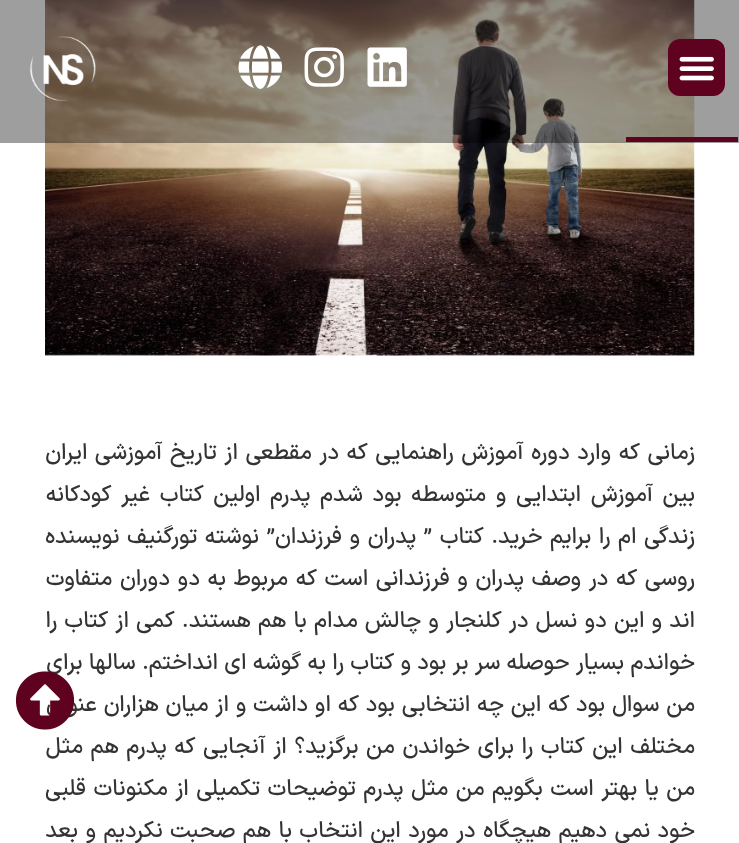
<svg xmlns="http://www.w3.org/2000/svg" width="739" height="843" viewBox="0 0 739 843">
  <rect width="100%" height="100%" fill="#fff"/>
  <image x="45" y="0" width="650" height="356" href="img/6.png"/>
  <path d="M0 0h739v143H0z" fill="#00000061"/>
  <rect x="668" y="39" width="57" height="57" rx="12" fill="#5f021f"/>
  <image x="679" y="56" width="35" height="25" href="img/1.png"/>
  <image x="367" y="47" width="40" height="40" href="img/2.png"/>
  <image x="304" y="47" width="40" height="40" href="img/3.png"/>
  <image x="238" y="45" width="45" height="44" href="img/4.png"/>
  <image x="30" y="36" width="66" height="65" href="img/5.png"/>
  <path d="M626 137h112v5H626z" fill="#5f021f"/>
  <g font-family="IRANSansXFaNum" font-size="22.5" font-weight="500" direction="rtl" fill="#333">
    <text x="695" y="459" word-spacing="1.5">زمانی که وارد دوره آموزش راهنمایی که در مقطعی از تاریخ آموزشی ایران</text>
    <text x="695" y="501" word-spacing="3.6">بین آموزش ابتدایی و متوسطه بود شدم پدرم اولین کتاب غیر کودکانه</text>
    <text x="695" y="543" word-spacing="1.5">زندگی ام را برایم خرید. کتاب ” پدران و فرزندان” نوشته تورگنیف نویسنده</text>
    <text x="695" y="585" word-spacing="1.6">روسی که در وصف پدران و فرزندانی است که مربوط به دو دوران متفاوت</text>
    <text x="695" y="627" word-spacing="1.1">اند و این دو نسل در کلنجار و چالش مدام با هم هستند. کمی از کتاب را</text>
    <text x="695" y="669" word-spacing="0.25">خواندم بسیار حوصله سر بر بود و کتاب را به گوشه ای انداختم. سالها برای</text>
    <text x="695" y="711" word-spacing="0.8">من سوال بود که این چه انتخابی بود که او داشت و از میان هزاران عنوان</text>
    <text x="695" y="753" word-spacing="1.5">مختلف این کتاب را برای خواندن من برگزید؟ از آنجایی که پدرم هم مثل</text>
    <text x="695" y="795" word-spacing="1.4">من یا بهتر است بگویم من مثل پدرم توضیحات تکمیلی از مکنونات قلبی</text>
    <text x="695" y="837" word-spacing="1.4">خود نمی دهیم هیچگاه در مورد این انتخاب با هم صحبت نکردیم و بعد</text>
  </g>
  <image x="15" y="671" width="60" height="59" href="img/7.png"/>
</svg>
